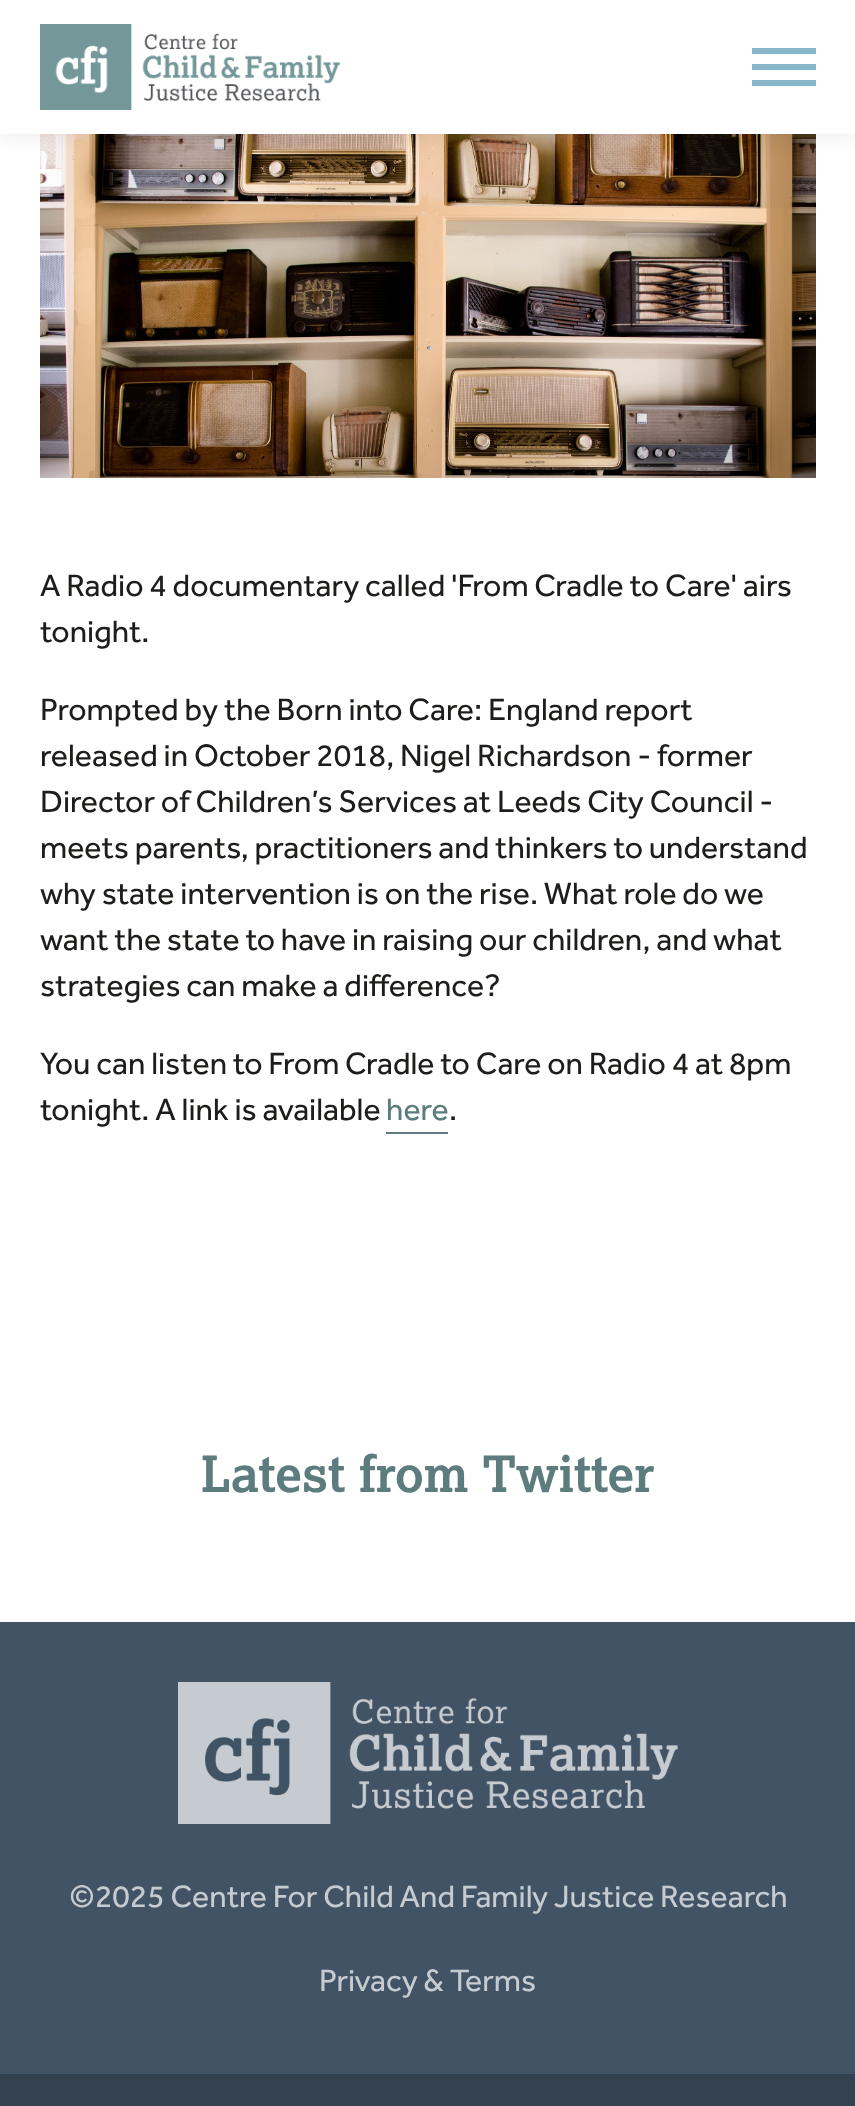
<svg xmlns="http://www.w3.org/2000/svg" width="855" height="2106" viewBox="0 0 855 2106">
  <rect width="100%" height="100%" fill="#fff"/>
  <image x="40" y="134" width="776" height="344" href="img/2.png"/>
  <path d="M0 0h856v134H0z" fill="#0000001a" filter="blur(10px)"/>
  <path d="M0 0h855v134H0z" fill="#fff"/>
  <image x="40" y="24" width="300" height="86" href="img/1.png"/>
  <path d="M752 64h64v6H752z" fill="#88b7cc"/>
  <path d="M752 48h64v6H752z" fill="#88b7cc"/>
  <path d="M752 80h64v6H752z" fill="#88b7cc"/>
  <path d="M386 1132h62v2H386z" fill="#5d7c7e"/>
  <path d="M0 1622h855v452H0z" fill="#415364"/>
  <image x="178" y="1682" width="500" height="142" href="img/3.png"/>
  <path d="M0 2074h855v32H0z" fill="#344250"/>
  <g font-family="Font" font-size="32" fill="#1d1d1b">
    <text x="40" y="596">A Radio 4 documentary called 'From Cradle to Care' airs</text>
    <text x="40" y="642">tonight.</text>
    <text x="40" y="720">Prompted by the Born into Care: England report</text>
    <text x="40" y="766">released in October 2018, Nigel Richardson - former</text>
    <text x="40" y="812">Director of Children’s Services at Leeds City Council -</text>
    <text x="40" y="858">meets parents, practitioners and thinkers to understand</text>
    <text x="40" y="904">why state intervention is on the rise. What role do we</text>
    <text x="40" y="950">want the state to have in raising our children, and what</text>
    <text x="40" y="996">strategies can make a difference?</text>
    <text x="40" y="1074">You can listen to From Cradle to Care on Radio 4 at 8pm</text>
    <text x="40" y="1120">tonight. A link is available</text>
  </g>
  <text x="386" y="1120" font-family="Font" font-size="32" fill="#5d7c7e">here</text>
  <text x="449" y="1120" font-family="Font" font-size="32" fill="#1d1d1b">.</text>
  <text x="201" y="1492" font-family="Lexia" font-size="50" font-weight="bold" fill="#5d7c7e">Latest from Twitter</text>
  <g font-family="Font" font-size="32" fill="#c5cbd0">
    <text x="69" y="1907">©2025 Centre For Child And Family Justice Research</text>
    <text x="319" y="1991">Privacy &amp; Terms</text>
  </g>
</svg>
